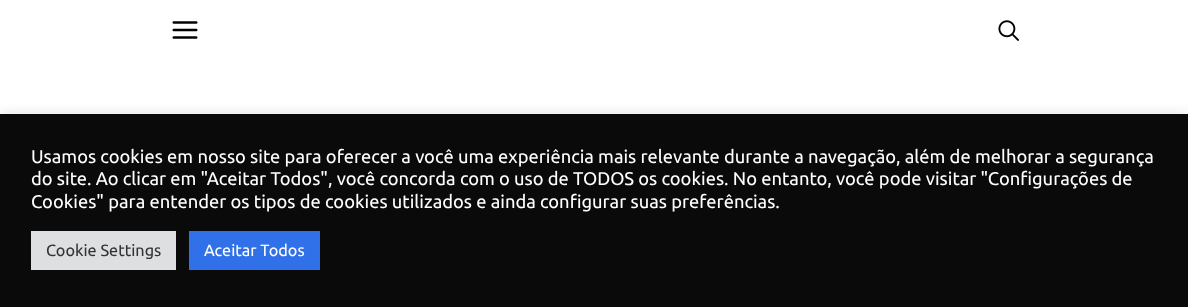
<svg xmlns="http://www.w3.org/2000/svg" width="1188" height="307" viewBox="0 0 1188 307">
  <rect width="100%" height="100%" fill="#fff"/>
  <image x="172" y="21" width="26" height="18" href="img/1.png"/>
  <image x="998" y="20" width="21" height="21" href="img/2.png"/>
  <path d="M0 113h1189v193H0z" fill="#acabab4d" filter="blur(6px)"/>
  <path d="M0 114h1188v193H0z" fill="#0a0a0a"/>
  <path d="M31 231h145v39H31z" fill="#dedfe0"/>
  <path d="M189 231h131v39H189z" fill="#3070e8"/>
  <g font-family="Ubuntu" font-size="18.33" fill="#fff">
    <text x="31" y="163">Usamos cookies em nosso site para oferecer a você uma experiência mais relevante durante a navegação, além de melhorar a segurança</text>
    <text x="31" y="185">do site. Ao clicar em "Aceitar Todos", você concorda com o uso de TODOS os cookies. No entanto, você pode visitar "Configurações de</text>
    <text x="31" y="208">Cookies" para entender os tipos de cookies utilizados e ainda configurar suas preferências.</text>
  </g>
  <text x="46" y="256" font-family="Ubuntu" font-size="16.25" fill="#333">Cookie Settings</text>
  <text x="204" y="256" font-family="Ubuntu" font-size="16.25" fill="#fff">Aceitar Todos</text>
</svg>
